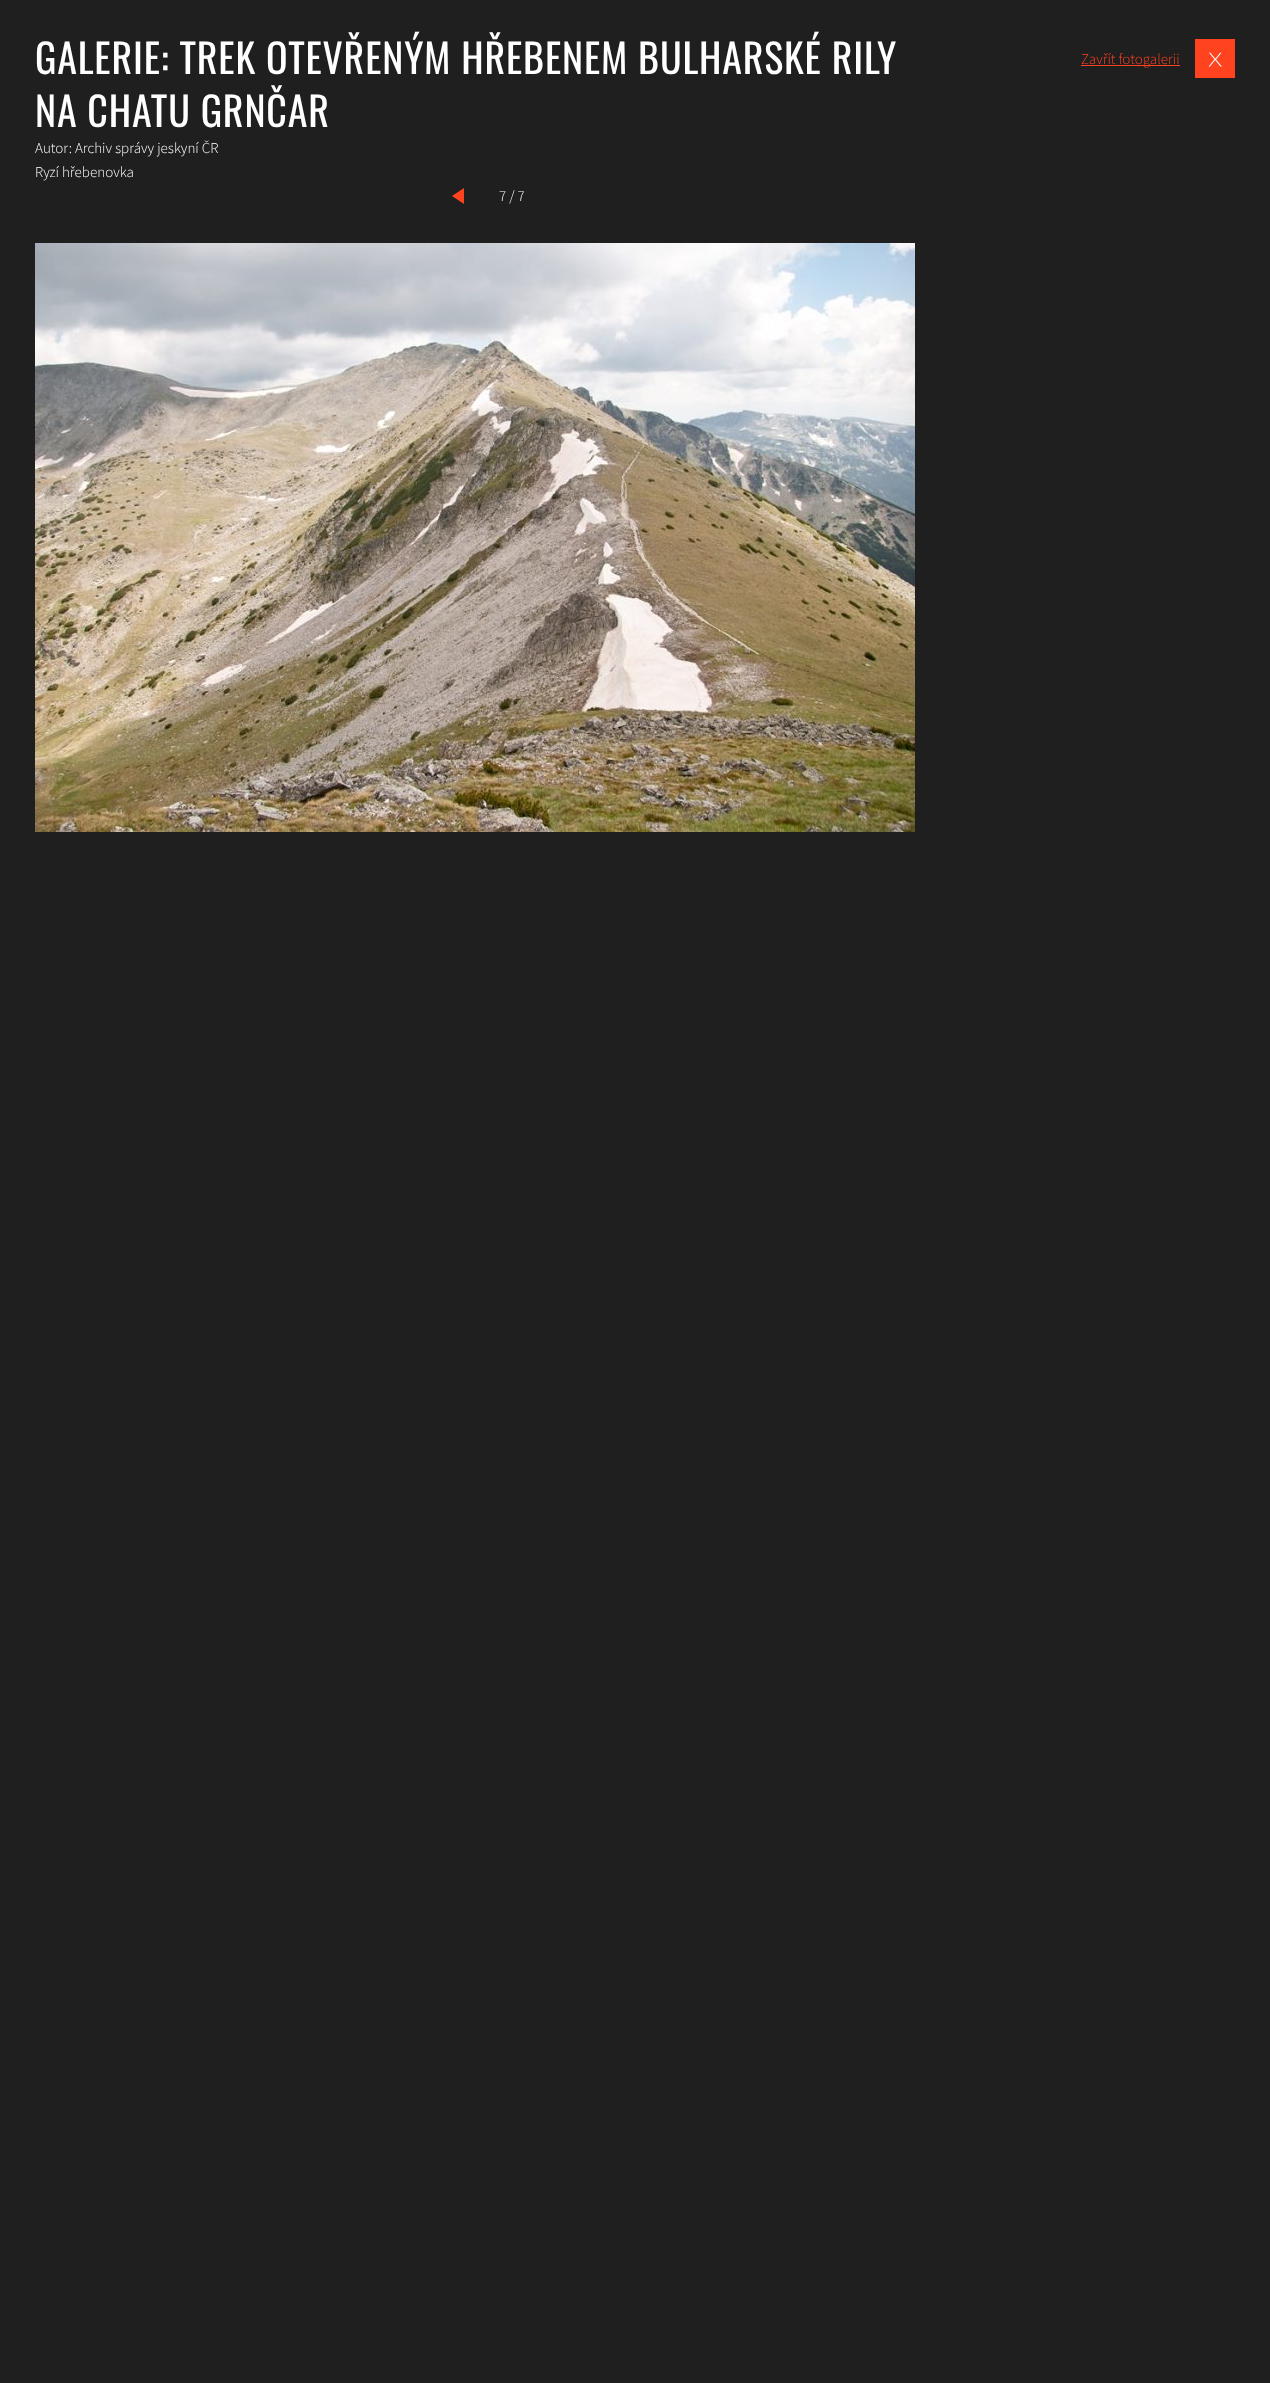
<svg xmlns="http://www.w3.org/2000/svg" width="1270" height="2383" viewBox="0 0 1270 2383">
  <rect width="100%" height="100%" fill="#1f1f1f"/>
  <path d="M464 188V204L452 196Z" fill="#ff431f"/>
  <path d="M1081 65h99v1H1081z" fill="#ff431f"/>
  <path d="M1195 39h40v39H1195z" fill="#ff431f"/>
  <image x="1208" y="52" width="14" height="15" href="img/1.png"/>
  <image x="35" y="243" width="880" height="589" href="img/2.png"/>
  <g font-family="Oswald" font-size="40" letter-spacing="0.8" fill="#fff">
    <text x="35" y="74">GALERIE: TREK OTEVŘENÝM HŘEBENEM BULHARSKÉ RILY</text>
    <text x="35" y="127">NA CHATU GRNČAR</text>
  </g>
  <g font-family="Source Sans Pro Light" font-size="15" font-weight="300" fill="#fff">
    <text x="35" y="153">Autor: Archiv správy jeskyní ČR</text>
    <text x="35" y="177">Ryzí hřebenovka</text>
    <text x="499" y="201">7 / 7</text>
  </g>
  <text x="1081" y="64" font-family="Source Sans Pro Light" font-size="15" font-weight="300" fill="#ff431f">Zavřít fotogalerii</text>
</svg>
